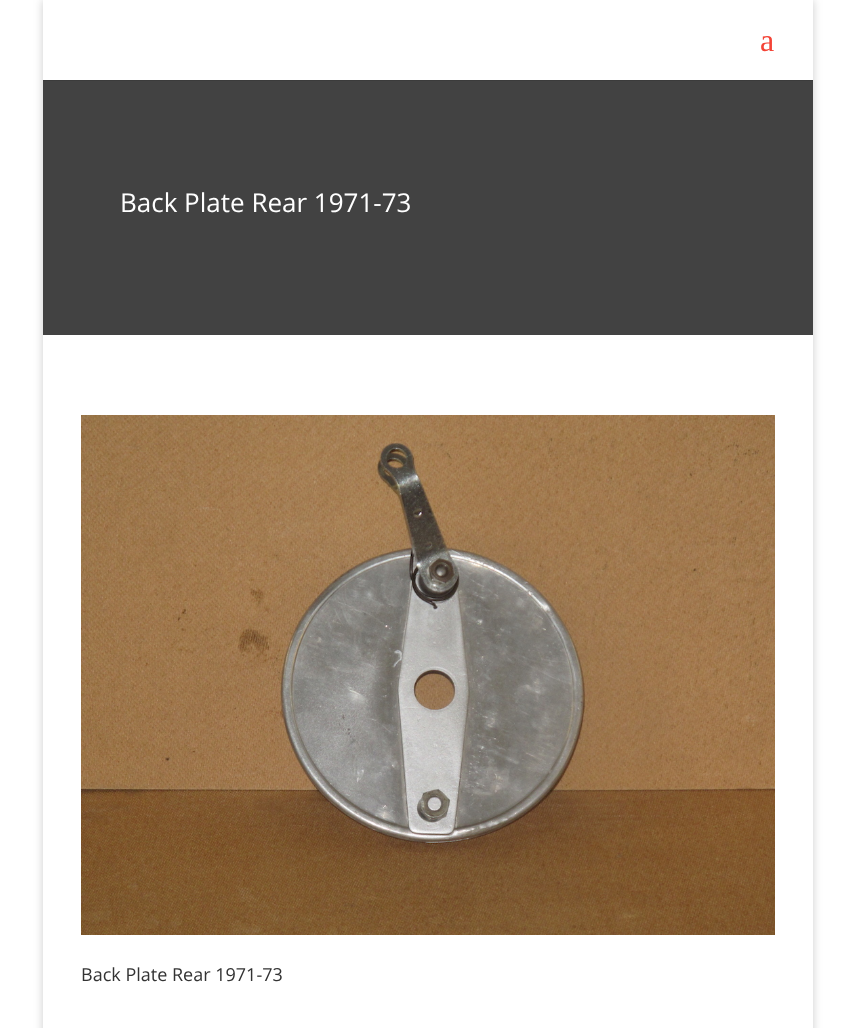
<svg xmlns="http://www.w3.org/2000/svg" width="856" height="1028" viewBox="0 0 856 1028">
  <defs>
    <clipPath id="clip1"><path d="M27 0H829V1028H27ZM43 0H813V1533H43Z" clip-rule="evenodd"/></clipPath>
  </defs>
  <rect width="100%" height="100%" fill="#fff"/>
  <g clip-path="url(#clip1)">
    <path d="M43 0h770v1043H43z" fill="#00000033" filter="blur(5px)"/>
  </g>
  <path d="M43 80h770v1H43z" fill="#3b3b3b"/>
  <path d="M43 81h770v254H43z" fill="#424242"/>
  <image x="81" y="415" width="694" height="520" href="img/1.png"/>
  <text x="760" y="51" font-family="Liberation Serif" font-size="32" fill="#f44336">a</text>
  <text x="120" y="212" font-family="Open Sans" font-size="26" fill="#fff">Back Plate Rear 1971-73</text>
  <text x="81" y="981" font-family="Open Sans" font-size="18" fill="#333">Back Plate Rear 1971-73</text>
</svg>
